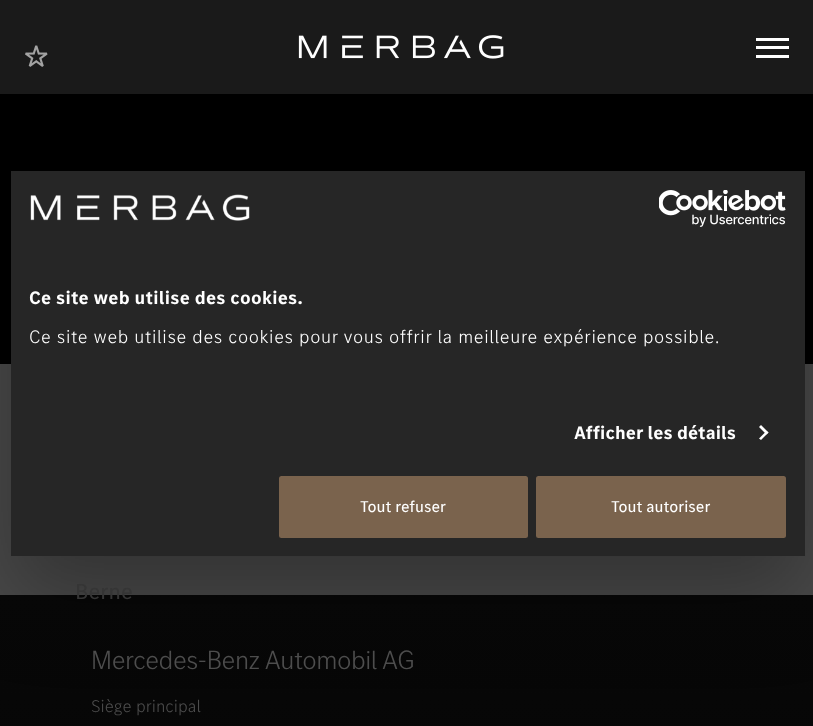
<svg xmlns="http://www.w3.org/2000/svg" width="813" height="726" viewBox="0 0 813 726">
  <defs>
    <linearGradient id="g1" gradientUnits="userSpaceOnUse" x1="407" y1="595" x2="407" y2="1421"><stop offset="0" stop-color="#080808"/><stop offset="1" stop-color="#000"/></linearGradient>
  </defs>
  <rect width="100%" height="100%" fill="#494949"/>
  <path d="M0 94h813v270H0z" fill="#000"/>
  <path d="M0 0h813v94H0z" fill="#1a1a1a"/>
  <path d="M0 595h813v131H0z" fill="url(#g1)"/>
  <path d="M11 211h794v385H11z" fill="#0000004d" filter="blur(42.5px)"/>
  <path d="M11 171h794v385H11z" fill="#262626"/>
  <image x="30" y="194" width="220" height="27" href="img/1.png"/>
  <image x="659" y="190" width="127" height="37" href="img/2.png"/>
  <path d="M761 425L768.5 432.5L766.5 434.5L759 427Z" fill="#fff"/>
  <path d="M766.5 431L768.5 432.5L761 440L759 438.5Z" fill="#fff"/>
  <rect x="279" y="476" width="249" height="62" rx="2.5" fill="#7a634d"/>
  <rect x="536" y="476" width="250" height="62" rx="2.5" fill="#7a634d"/>
  <image x="298" y="35" width="206" height="24" href="img/3.png"/>
  <path d="M756 55h33v3H756z" fill="#fff"/>
  <path d="M756 38h33v3H756z" fill="#fff"/>
  <path d="M756 46h33v3H756z" fill="#fff"/>
  <image x="25" y="45" width="23" height="22" href="img/4.png"/>
  <text x="29" y="304" font-family="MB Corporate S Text" font-size="18.75" font-weight="bold" letter-spacing="0.3" fill="#fff">Ce site web utilise des cookies.</text>
  <text x="29" y="343" font-family="MB Corporate S Text" font-size="18.75" font-weight="300" letter-spacing="0.62" fill="#fff">Ce site web utilise des cookies pour vous offrir la meilleure expérience possible.</text>
  <text x="574" y="439" font-family="MB Corporate S Text" font-size="18.75" font-weight="bold" letter-spacing="0.1" fill="#fff">Afficher les détails</text>
  <g font-family="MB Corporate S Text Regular" font-size="16.25" fill="#fff">
    <text x="360" y="512">Tout refuser</text>
    <text x="611" y="512">Tout autoriser</text>
  </g>
  <text x="75" y="599" font-family="MB Corporate S Text Regular" font-size="22.5" fill="#353535">Berne</text>
  <text x="91" y="669" font-family="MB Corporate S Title" font-size="27.5" font-weight="300" fill="#4d4d4d">Mercedes-Benz Automobil AG</text>
  <text x="91" y="712" font-family="MB Corporate S Text" font-size="17.5" font-weight="300" fill="#4d4d4d">Siège principal</text>
</svg>
